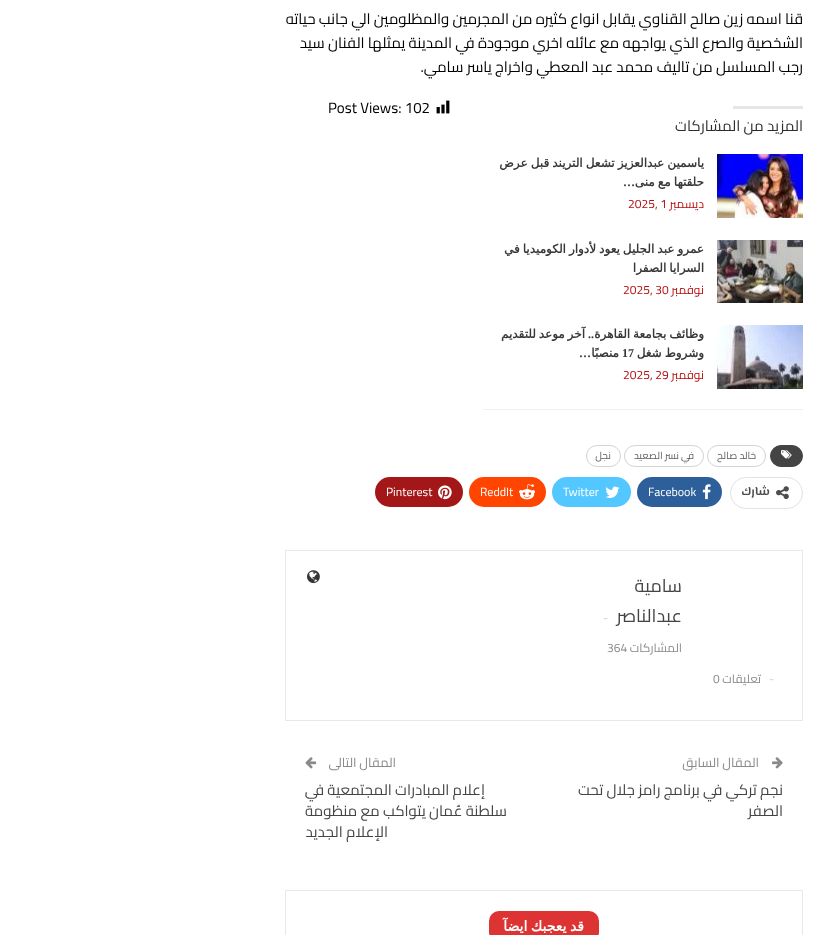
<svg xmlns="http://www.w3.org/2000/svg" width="818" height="935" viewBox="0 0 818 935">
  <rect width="100%" height="100%" fill="#fff"/>
  <image x="436" y="100" width="14" height="14" href="img/1.png"/>
  <path d="M483 409h320v1H483z" fill="#f0f0f0"/>
  <path d="M733 106h70v3H733z" fill="#e6e6e6"/>
  <image x="717" y="154" width="86" height="64" href="img/2.png"/>
  <image x="717" y="240" width="86" height="63" href="img/3.png"/>
  <image x="717" y="325" width="86" height="64" href="img/4.png"/>
  <rect x="770.5" y="445.5" width="32" height="21" rx="10.5" fill="#444" stroke="#444"/>
  <image x="781" y="450" width="11" height="9" href="img/5.png"/>
  <rect x="707.5" y="445.5" width="58" height="21" rx="10.5" fill="none" stroke="#d4d4d4"/>
  <rect x="624.5" y="445.5" width="79" height="21" rx="10.5" fill="none" stroke="#d4d4d4"/>
  <rect x="586.5" y="445.5" width="34" height="21" rx="10.5" fill="none" stroke="#d4d4d4"/>
  <rect x="730.5" y="477.5" width="72" height="31" rx="15.5" fill="none" stroke="#e2e2e2"/>
  <image x="776" y="486" width="13" height="14" href="img/6.png"/>
  <rect x="637" y="477" width="85" height="30" rx="15" fill="#2d5f9a"/>
  <image x="702" y="484" width="9" height="16" href="img/7.png"/>
  <rect x="552" y="477" width="79" height="30" rx="15" fill="#53c7ff"/>
  <image x="605" y="486" width="15" height="12" href="img/8.png"/>
  <rect x="469" y="477" width="77" height="30" rx="15" fill="#ff4500"/>
  <image x="519" y="484" width="16" height="16" href="img/9.png"/>
  <rect x="375" y="477" width="88" height="30" rx="15" fill="#a41719"/>
  <image x="438" y="485" width="14" height="15" href="img/10.png"/>
  <path d="M285.5 550.5h517v170H285.5z" fill="none" stroke="#e8e8e8"/>
  <image x="307" y="570" width="13" height="14" href="img/11.png"/>
  <image x="772" y="757" width="11" height="12" href="img/12.png"/>
  <image x="305" y="757" width="12" height="12" href="img/13.png"/>
  <path d="M285.5 890.5h517v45H285.5z" fill="none" stroke="#e8e8e8"/>
  <rect x="489" y="911" width="110" height="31" rx="10" fill="#d33"/>
  <g font-family="Cairo" font-size="15" direction="rtl" fill="#000">
    <text x="803" y="24">قنا اسمه زين صالح القناوي يقابل انواع كثيره من المجرمين والمظلومين الي جانب حياته</text>
    <text x="803" y="48">الشخصية والصرع الذي يواجهه مع عائله اخري موجودة في المدينة يمثلها الفنان سيد</text>
    <text x="803" y="72">رجب المسلسل من تاليف محمد عبد المعطي واخراج ياسر سامي.</text>
  </g>
  <text x="328" y="113" font-family="Cairo" font-size="15" fill="#000">Post Views: 102</text>
  <text x="803" y="131" font-family="Cairo" font-size="15" direction="rtl" fill="#2d2d2d">المزيد من المشاركات</text>
  <g font-family="DejaVu Sans" font-size="12" font-weight="bold" direction="rtl" fill="#383838">
    <text x="704" y="167" word-spacing="-0.75">ياسمين عبدالعزيز تشعل التريند قبل عرض</text>
    <text x="704" y="186" word-spacing="-0.75">حلقتها مع منى</text>
  </g>
  <text x="635" y="186" font-family="Liberation Serif" font-size="12" font-weight="bold" direction="rtl" fill="#383838">…</text>
  <text x="704" y="208" font-family="Cairo" font-size="12" direction="rtl" fill="#b70e0e">ديسمبر</text>
  <text x="628" y="208" font-family="Cairo" font-size="12" fill="#b70e0e">2025, 1</text>
  <g font-family="DejaVu Sans" font-size="12" font-weight="bold" direction="rtl" fill="#383838">
    <text x="704" y="253" word-spacing="-0.75">عمرو عبد الجليل يعود لأدوار الكوميديا في</text>
    <text x="704" y="272" word-spacing="-0.75">السرايا الصفرا</text>
  </g>
  <text x="704" y="294" font-family="Cairo" font-size="12" direction="rtl" fill="#b70e0e">نوفمبر</text>
  <text x="623" y="294" font-family="Cairo" font-size="12" fill="#b70e0e">2025, 30</text>
  <text x="704" y="338" word-spacing="-1" font-family="DejaVu Sans" font-size="12" font-weight="bold" direction="rtl" fill="#383838">وظائف بجامعة القاهرة</text>
  <text x="594" y="338" font-family="Liberation Serif" font-size="12" font-weight="bold" direction="rtl" fill="#383838">..</text>
  <g font-family="DejaVu Sans" font-size="12" font-weight="bold" direction="rtl" fill="#383838">
    <text x="585" y="338" word-spacing="-1">آخر موعد للتقديم</text>
    <text x="704" y="357" word-spacing="-0.75">وشروط شغل</text>
  </g>
  <text x="622" y="357" font-family="Liberation Serif" font-size="12" font-weight="bold" fill="#383838">17</text>
  <text x="619" y="357" font-family="DejaVu Sans" font-size="12" font-weight="bold" direction="rtl" fill="#383838">منصبًا</text>
  <text x="591" y="357" font-family="Liberation Serif" font-size="12" font-weight="bold" direction="rtl" fill="#383838">…</text>
  <text x="704" y="379" font-family="Cairo" font-size="12" direction="rtl" fill="#b70e0e">نوفمبر</text>
  <text x="623" y="379" font-family="Cairo" font-size="12" fill="#b70e0e">2025, 29</text>
  <g font-family="Cairo" font-size="10" direction="rtl" fill="#5f5f5f">
    <text x="756" y="459">خالد صالح</text>
    <text x="694" y="459">في نسر الصعيد</text>
    <text x="611" y="459">نجل</text>
  </g>
  <text x="770" y="495" font-family="El Messiri" font-size="12" font-weight="bold" direction="rtl" fill="#4d4d4d">شارك</text>
  <g font-family="Cairo" font-size="12" fill="#fff">
    <text x="648" y="496">Facebook</text>
    <text x="563" y="496">Twitter</text>
    <text x="480" y="496">ReddIt</text>
    <text x="386" y="496">Pinterest</text>
  </g>
  <g font-family="Cairo" font-size="18" direction="rtl" fill="#444">
    <text x="682" y="592">سامية</text>
    <text x="682" y="622">عبدالناصر</text>
  </g>
  <text x="603" y="622" font-family="Cairo" font-size="12" fill="#d0d0d0">-</text>
  <text x="682" y="652" font-family="Cairo" font-size="12" direction="rtl" fill="#8a8a8a">المشاركات</text>
  <text x="607" y="652" font-family="Cairo" font-size="12" fill="#8a8a8a">364</text>
  <text x="769" y="683" font-family="Cairo" font-size="12" fill="#d0d0d0">-</text>
  <text x="761" y="683" font-family="Cairo" font-size="12" direction="rtl" fill="#8a8a8a">تعليقات</text>
  <text x="713" y="683" font-family="Cairo" font-size="12" fill="#8a8a8a">0</text>
  <text x="759" y="767" font-family="Cairo" font-size="13" direction="rtl" fill="#8a8a8a">المقال السابق</text>
  <g font-family="Cairo" font-size="15" direction="rtl" fill="#444">
    <text x="783" y="795">نجم تركي في برنامج رامز جلال تحت</text>
    <text x="783" y="816">الصفر</text>
  </g>
  <text x="396" y="767" font-family="Cairo" font-size="13" direction="rtl" fill="#8a8a8a">المقال التالى</text>
  <g font-family="Cairo" font-size="15" direction="rtl" fill="#444">
    <text x="485" y="795">إعلام المبادرات المجتمعية في</text>
    <text x="507" y="816">سلطنة عُمان يتواكب مع منظومة</text>
    <text x="388" y="837">الإعلام الجديد</text>
  </g>
  <text x="584" y="931" word-spacing="-1" font-family="DejaVu Sans" font-size="14" font-weight="bold" direction="rtl" fill="#fff">قد يعجبك ايضآ</text>
</svg>
